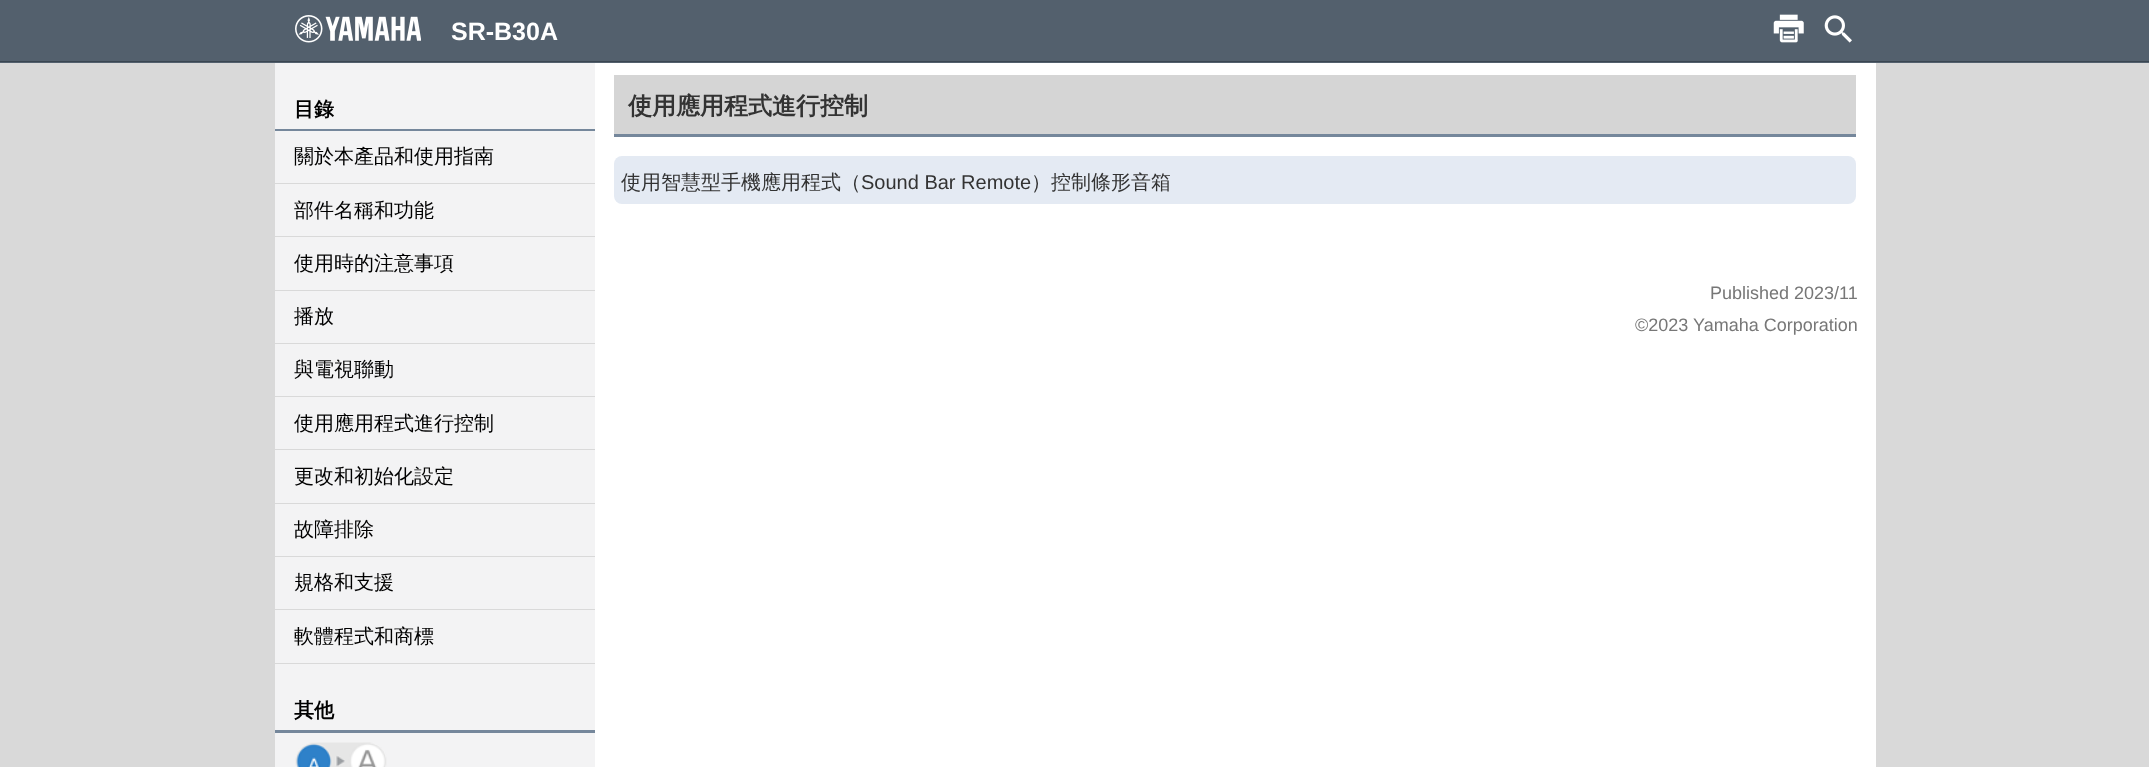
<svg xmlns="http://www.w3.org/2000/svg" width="2149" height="767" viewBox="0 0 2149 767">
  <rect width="100%" height="100%" fill="#d9d9d9"/>
  <path d="M275 63h320v704H275z" fill="#f3f3f4"/>
  <path d="M275 129h320v2H275z" fill="#75879b"/>
  <path d="M275 183h320v1H275z" fill="#d9d9d9"/>
  <path d="M275 236h320v1H275z" fill="#d9d9d9"/>
  <path d="M275 290h320v1H275z" fill="#d9d9d9"/>
  <path d="M275 343h320v1H275z" fill="#d9d9d9"/>
  <path d="M275 396h320v1H275z" fill="#d9d9d9"/>
  <path d="M275 449h320v1H275z" fill="#d9d9d9"/>
  <path d="M275 503h320v1H275z" fill="#d9d9d9"/>
  <path d="M275 556h320v1H275z" fill="#d9d9d9"/>
  <path d="M275 609h320v1H275z" fill="#d9d9d9"/>
  <path d="M275 663h320v1H275z" fill="#d9d9d9"/>
  <path d="M275 730h320v3H275z" fill="#75879b"/>
  <image x="295" y="742" width="92" height="25" href="img/1.png"/>
  <path d="M0 0h2149v63H0z" fill="#53606d"/>
  <path d="M0 61h2149v1H0z" fill="#3a4651"/>
  <image x="295" y="15" width="126" height="28" href="img/2.png"/>
  <image x="1773" y="14" width="31" height="29" href="img/3.png"/>
  <image x="1824" y="15" width="28" height="28" href="img/4.png"/>
  <path d="M595 63h1281v704H595z" fill="#fff"/>
  <path d="M614 75h1242v59H614z" fill="#d5d5d5"/>
  <path d="M614 134h1242v3H614z" fill="#75879b"/>
  <rect x="614" y="156" width="1242" height="48" rx="8" fill="#e4eaf3"/>
  <text x="294" y="116" font-family="WenQuanYi Zen Hei" font-size="20" font-weight="bold" fill="#000">目錄</text>
  <g font-family="WenQuanYi Zen Hei" font-size="20" font-weight="500" fill="#000">
    <text x="294" y="163">關於本產品和使用指南</text>
    <text x="294" y="217">部件名稱和功能</text>
    <text x="294" y="270">使用時的注意事項</text>
    <text x="294" y="323">播放</text>
    <text x="294" y="376">與電視聯動</text>
    <text x="294" y="430">使用應用程式進行控制</text>
    <text x="294" y="483">更改和初始化設定</text>
    <text x="294" y="536">故障排除</text>
    <text x="294" y="589">規格和支援</text>
    <text x="294" y="643">軟體程式和商標</text>
  </g>
  <text x="294" y="717" font-family="WenQuanYi Zen Hei" font-size="20" font-weight="bold" fill="#000">其他</text>
  <text x="451" y="40" font-family="Liberation Sans" font-size="25" font-weight="bold" fill="#fff">SR-B30A</text>
  <text x="628" y="114" font-family="WenQuanYi Zen Hei" font-size="24" font-weight="bold" fill="#333">使用應用程式進行控制</text>
  <text x="621" y="189" font-family="WenQuanYi Zen Hei" font-size="20" font-weight="500" fill="#333">使用智慧型手機應用程式（</text>
  <text x="861" y="189" font-family="Liberation Sans" font-size="20" fill="#333">Sound Bar Remote</text>
  <text x="1031" y="189" font-family="WenQuanYi Zen Hei" font-size="20" font-weight="500" fill="#333">）控制條形音箱</text>
  <g font-family="Liberation Sans" font-size="18" fill="#777">
    <text x="1710" y="299">Published 2023/11</text>
    <text x="1635" y="331">©2023 Yamaha Corporation</text>
  </g>
</svg>
